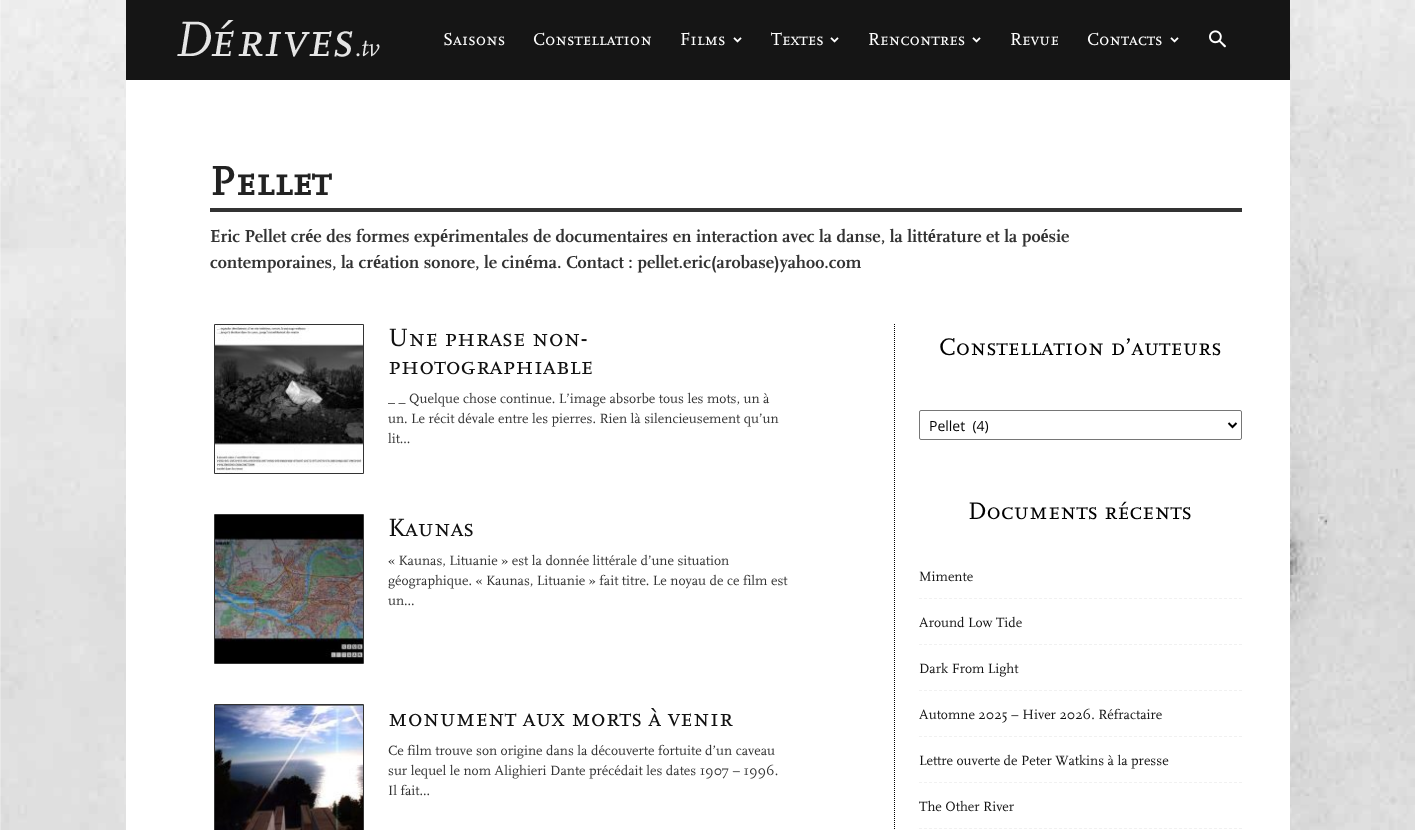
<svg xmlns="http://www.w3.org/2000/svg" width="1415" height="830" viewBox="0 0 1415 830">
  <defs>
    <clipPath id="clip1"><path d="M919 488h323v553H919z"/></clipPath>
  </defs>
  <rect width="100%" height="100%" fill="#fff"/>
  <image x="0" y="0" width="1415" height="830" href="img/1.png"/>
  <path d="M126 0h1164v80H126z" fill="#151515"/>
  <image x="177" y="20" width="203" height="37" href="img/2.png"/>
  <image x="733" y="37" width="9" height="6" href="img/3.png"/>
  <image x="830" y="37" width="9" height="6" href="img/3.png"/>
  <image x="972" y="37" width="9" height="6" href="img/3.png"/>
  <image x="1170" y="37" width="9" height="6" href="img/3.png"/>
  <image x="1209" y="30" width="17" height="18" href="img/4.png"/>
  <path d="M126 80h1164v750H126z" fill="#fff"/>
  <path d="M210 208h1032v4H210z" fill="#333"/>
  <path d="M214.5 324.5h149v149H214.5z" fill="none" stroke="#333"/>
  <image x="215" y="325" width="148" height="148" href="img/5.png"/>
  <path d="M214.5 514.5h149v149H214.5z" fill="none" stroke="#333"/>
  <image x="215" y="515" width="148" height="148" href="img/6.png"/>
  <path d="M214.5 704.5h149v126H214.5z" fill="none" stroke="#333"/>
  <image x="215" y="705" width="148" height="125" href="img/7.png"/>
  <path d="M894.5 324V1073" fill="none" stroke="#000" stroke-dasharray="1 1"/>
  <rect x="919.5" y="410.5" width="322" height="29" rx="1.5" fill="none" stroke="#767676"/>
  <path d="M1228.5 423L1232.5 427L1236.5 423" fill="none" stroke="#000" stroke-width="2"/>
  <path d="M919 598.5H1242" fill="none" stroke="#f1f1f1" stroke-dasharray="3 2"/>
  <path d="M919 644.5H1242" fill="none" stroke="#f1f1f1" stroke-dasharray="3 2"/>
  <path d="M919 690.5H1242" fill="none" stroke="#f1f1f1" stroke-dasharray="3 2"/>
  <path d="M919 736.5H1242" fill="none" stroke="#f1f1f1" stroke-dasharray="3 2"/>
  <path d="M919 782.5H1242" fill="none" stroke="#f1f1f1" stroke-dasharray="3 2"/>
  <path d="M919 828.5H1242" fill="none" stroke="#f1f1f1" stroke-dasharray="3 2"/>
  <g font-family="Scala" font-size="18" font-weight="500" fill="#fff">
    <text x="443" y="45">Saisons</text>
    <text x="533" y="45">Constellation</text>
    <text x="680" y="45">Films</text>
    <text x="771" y="45">Textes</text>
    <text x="868" y="45">Rencontres</text>
    <text x="1010" y="45">Revue</text>
    <text x="1087" y="45">Contacts</text>
  </g>
  <text x="210" y="195" font-family="Scala" font-size="42" font-weight="bold" fill="#222">Pellet</text>
  <g font-family="'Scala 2'" font-size="18" font-weight="bold" fill="#333">
    <text x="210" y="242">Eric Pellet crée des formes expérimentales de documentaires en interaction avec la danse, la littérature et la poésie</text>
    <text x="210" y="268">contemporaines, la création sonore, le cinéma. Contact : pellet.eric(arobase)yahoo.com</text>
  </g>
  <g font-family="Scala" font-size="26" font-weight="500" fill="#111">
    <text x="388" y="346">Une phrase non-</text>
    <text x="388" y="374">photographiable</text>
  </g>
  <g font-family="'Scala 2'" font-size="14" font-weight="500" fill="#333">
    <text x="388" y="403">_ _ Quelque chose continue. L’image absorbe tous les mots, un à</text>
    <text x="388" y="423">un. Le récit dévale entre les pierres. Rien là silencieusement qu’un</text>
    <text x="388" y="443">lit...</text>
  </g>
  <text x="388" y="536" font-family="Scala" font-size="26" font-weight="500" fill="#111">Kaunas</text>
  <g font-family="'Scala 2'" font-size="14" font-weight="500" fill="#333">
    <text x="388" y="565">« Kaunas, Lituanie » est la donnée littérale d’une situation</text>
    <text x="388" y="585">géographique. « Kaunas, Lituanie » fait titre. Le noyau de ce film est</text>
    <text x="388" y="605">un...</text>
  </g>
  <text x="388" y="726" font-family="Scala" font-size="26" font-weight="500" fill="#111">monument aux morts à venir</text>
  <g font-family="'Scala 2'" font-size="14" font-weight="500" fill="#333">
    <text x="388" y="755">Ce film trouve son origine dans la découverte fortuite d’un caveau</text>
    <text x="388" y="775">sur lequel le nom Alighieri Dante précédait les dates 1907 – 1996.</text>
    <text x="388" y="795">Il fait...</text>
  </g>
  <text x="939" y="355" font-family="Scala" font-size="25" font-weight="500" fill="#000">Constellation d’auteurs</text>
  <text x="929" y="431" font-family="Open Sans" font-size="14" fill="#000" xml:space="preserve">Pellet  (4)</text>
  <text x="968" y="519" font-family="Scala" font-size="25" font-weight="500" fill="#000">Documents récents</text>
  <g font-family="'Scala 2'" font-size="14" font-weight="500" fill="#111">
    <text x="919" y="581">Mimente</text>
    <text x="919" y="627">Around Low Tide</text>
    <text x="919" y="673">Dark From Light</text>
    <text x="919" y="719">Automne 2025 – Hiver 2026. Réfractaire</text>
    <text x="919" y="765">Lettre ouverte de Peter Watkins à la presse</text>
  </g>
  <g clip-path="url(#clip1)">
    <text x="919" y="811" font-family="'Scala 2'" font-size="14" font-weight="500" fill="#111">The Other River</text>
  </g>
</svg>
